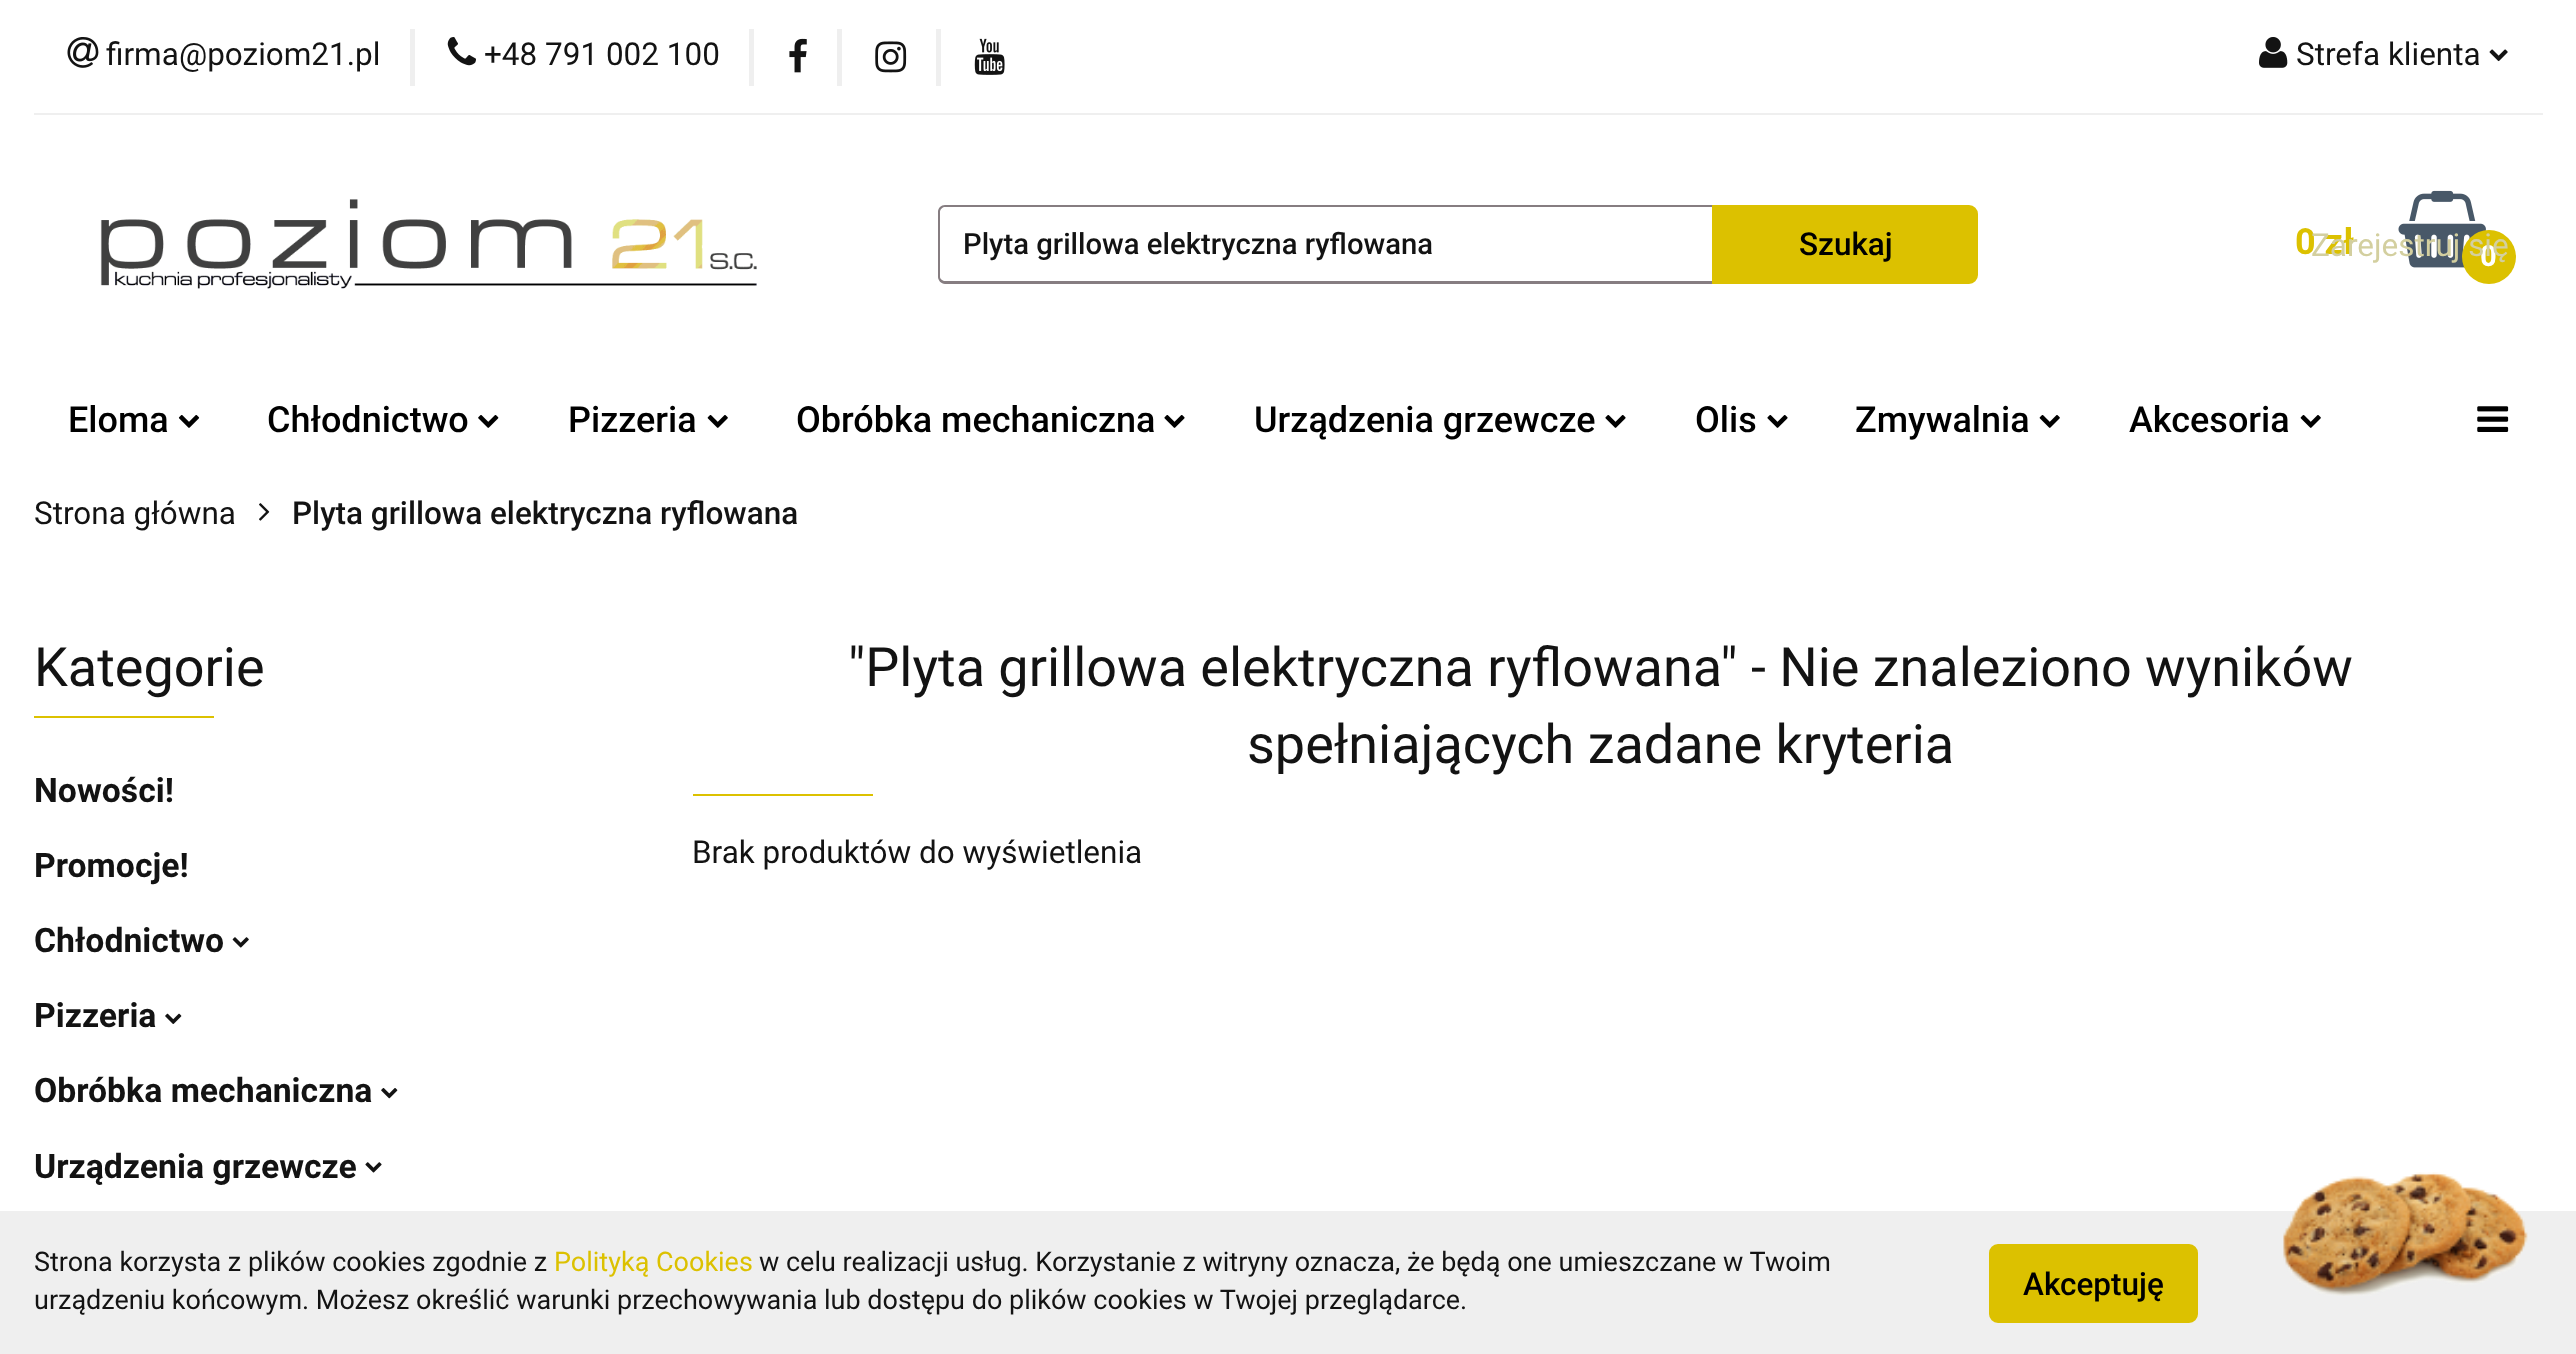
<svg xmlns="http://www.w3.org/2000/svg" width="2576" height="1354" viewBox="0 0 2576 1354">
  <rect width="100%" height="100%" fill="#fff"/>
  <path d="M34 113h2509v2H34z" fill="#efefef"/>
  <image x="67" y="37" width="32" height="31" href="img/1.png"/>
  <path d="M410 29h5v57H410z" fill="#efefef"/>
  <image x="447" y="37" width="29" height="29" href="img/2.png"/>
  <path d="M749 29h5v57H749z" fill="#efefef"/>
  <image x="789" y="38" width="18" height="35" href="img/3.png"/>
  <path d="M837 29h5v57H837z" fill="#efefef"/>
  <image x="875" y="41" width="32" height="32" href="img/4.png"/>
  <path d="M936 29h5v57H936z" fill="#efefef"/>
  <image x="974" y="38" width="31" height="37" href="img/5.png"/>
  <image x="2259" y="37" width="29" height="31" href="img/6.png"/>
  <image x="2489" y="49" width="19" height="13" href="img/7.png"/>
  <image x="100" y="199" width="657" height="90" href="img/8.png"/>
  <path d="M945 205H1712V284H945C941 284 938 280 938 277V212C938 208 941 205 945 205ZM945 207H1712V281H945C943 281 940 279 940 277V212C940 209 943 207 945 207Z" fill="#867d81" fill-rule="evenodd"/>
  <path d="M1715.5 208.5H1969C1972 208.5 1974.5 211 1974.5 214V275C1974.5 278 1972 280.5 1969 280.5H1715.5Z" fill="#dcc100" stroke="#dcc100" stroke-width="7"/>
  <image x="2398" y="190" width="88" height="78" href="img/9.png"/>
  <circle cx="2489" cy="257" r="27" fill="#dcc100"/>
  <image x="178" y="415" width="22" height="13" href="img/10.png"/>
  <image x="478" y="415" width="21" height="13" href="img/11.png"/>
  <image x="707" y="415" width="21" height="13" href="img/12.png"/>
  <image x="1164" y="415" width="21" height="13" href="img/13.png"/>
  <image x="1605" y="415" width="21" height="13" href="img/13.png"/>
  <image x="1767" y="415" width="21" height="13" href="img/13.png"/>
  <image x="2039" y="415" width="21" height="13" href="img/12.png"/>
  <image x="2300" y="415" width="21" height="13" href="img/12.png"/>
  <image x="2477" y="406" width="32" height="26" href="img/14.png"/>
  <image x="259" y="503" width="11" height="18" href="img/15.png"/>
  <path d="M34 716h180v2H34z" fill="#dcc100"/>
  <image x="232" y="937" width="17" height="11" href="img/16.png"/>
  <image x="165" y="1013" width="17" height="11" href="img/17.png"/>
  <image x="381" y="1088" width="17" height="11" href="img/18.png"/>
  <image x="365" y="1162" width="17" height="11" href="img/19.png"/>
  <path d="M693 794h180v2H693z" fill="#dcc100"/>
  <path d="M0 1211h2576v143H0z" fill="#efefef"/>
  <rect x="1992.5" y="1247.5" width="202" height="72" rx="5.5" fill="#dcc100" stroke="#dcc100" stroke-width="7"/>
  <image x="2283" y="1172" width="245" height="124" href="img/20.png"/>
  <g font-family="Roboto" font-size="31.5" fill="#131313">
    <text x="106" y="65">firma@poziom21.pl</text>
    <text x="484" y="65">+48 791 002 100</text>
    <text x="2296" y="65">Strefa klienta</text>
  </g>
  <text x="963" y="254" font-family="Roboto" font-size="29.25" font-weight="500" fill="#131313">Plyta grillowa elektryczna ryflowana</text>
  <text x="1799" y="255" font-family="Roboto" font-size="31.5" font-weight="500" fill="#000">Szukaj</text>
  <text x="2295" y="254" font-family="Roboto" font-size="36" font-weight="bold" fill="#dcc100">0 zł</text>
  <text x="2480" y="266" font-family="Roboto" font-size="29.25" font-weight="bold" fill="#fff">0</text>
  <text x="2311" y="256" font-family="Roboto" font-size="31.5" fill="#d3cf9f">Zarejestruj się</text>
  <g font-family="Roboto" font-size="36" font-weight="500" fill="#000">
    <text x="68" y="432">Eloma</text>
    <text x="267" y="432">Chłodnictwo</text>
    <text x="568" y="432">Pizzeria</text>
    <text x="796" y="432">Obróbka mechaniczna</text>
    <text x="1254" y="432">Urządzenia grzewcze</text>
    <text x="1695" y="432">Olis</text>
    <text x="1855" y="432">Zmywalnia</text>
    <text x="2129" y="432">Akcesoria</text>
  </g>
  <text x="34" y="524" font-family="Roboto" font-size="31.5" fill="#131313">Strona główna</text>
  <text x="292" y="524" font-family="Roboto" font-size="31.5" font-weight="500" fill="#131313">Plyta grillowa elektryczna ryflowana</text>
  <text x="34" y="686" font-family="Roboto" font-size="54" fill="#131313">Kategorie</text>
  <g font-family="Roboto" font-size="33.75" font-weight="bold" fill="#131313">
    <text x="34" y="802">Nowości!</text>
    <text x="34" y="877">Promocje!</text>
    <text x="34" y="952">Chłodnictwo</text>
    <text x="34" y="1027">Pizzeria</text>
    <text x="34" y="1102">Obróbka mechaniczna</text>
    <text x="34" y="1178">Urządzenia grzewcze</text>
  </g>
  <g font-family="Roboto" font-size="54" fill="#131313">
    <text x="848" y="686">"Plyta grillowa elektryczna ryflowana" - Nie znaleziono wyników</text>
    <text x="1247" y="763">spełniających zadane kryteria</text>
  </g>
  <text x="692" y="863" font-family="Roboto" font-size="31.5" fill="#131313">Brak produktów do wyświetlenia</text>
  <text x="34" y="1271" font-family="Roboto" font-size="27" fill="#131313">Strona korzysta z plików cookies zgodnie z</text>
  <text x="554" y="1271" font-family="Roboto" font-size="27" fill="#dcc100">Polityką Cookies</text>
  <g font-family="Roboto" font-size="27" fill="#131313">
    <text x="759" y="1271">w celu realizacji usług. Korzystanie z witryny oznacza, że będą one umieszczane w Twoim</text>
    <text x="34" y="1309">urządzeniu końcowym. Możesz określić warunki przechowywania lub dostępu do plików cookies w Twojej przeglądarce.</text>
  </g>
  <text x="2023" y="1295" font-family="Roboto" font-size="31.5" font-weight="500" fill="#000">Akceptuję</text>
</svg>
